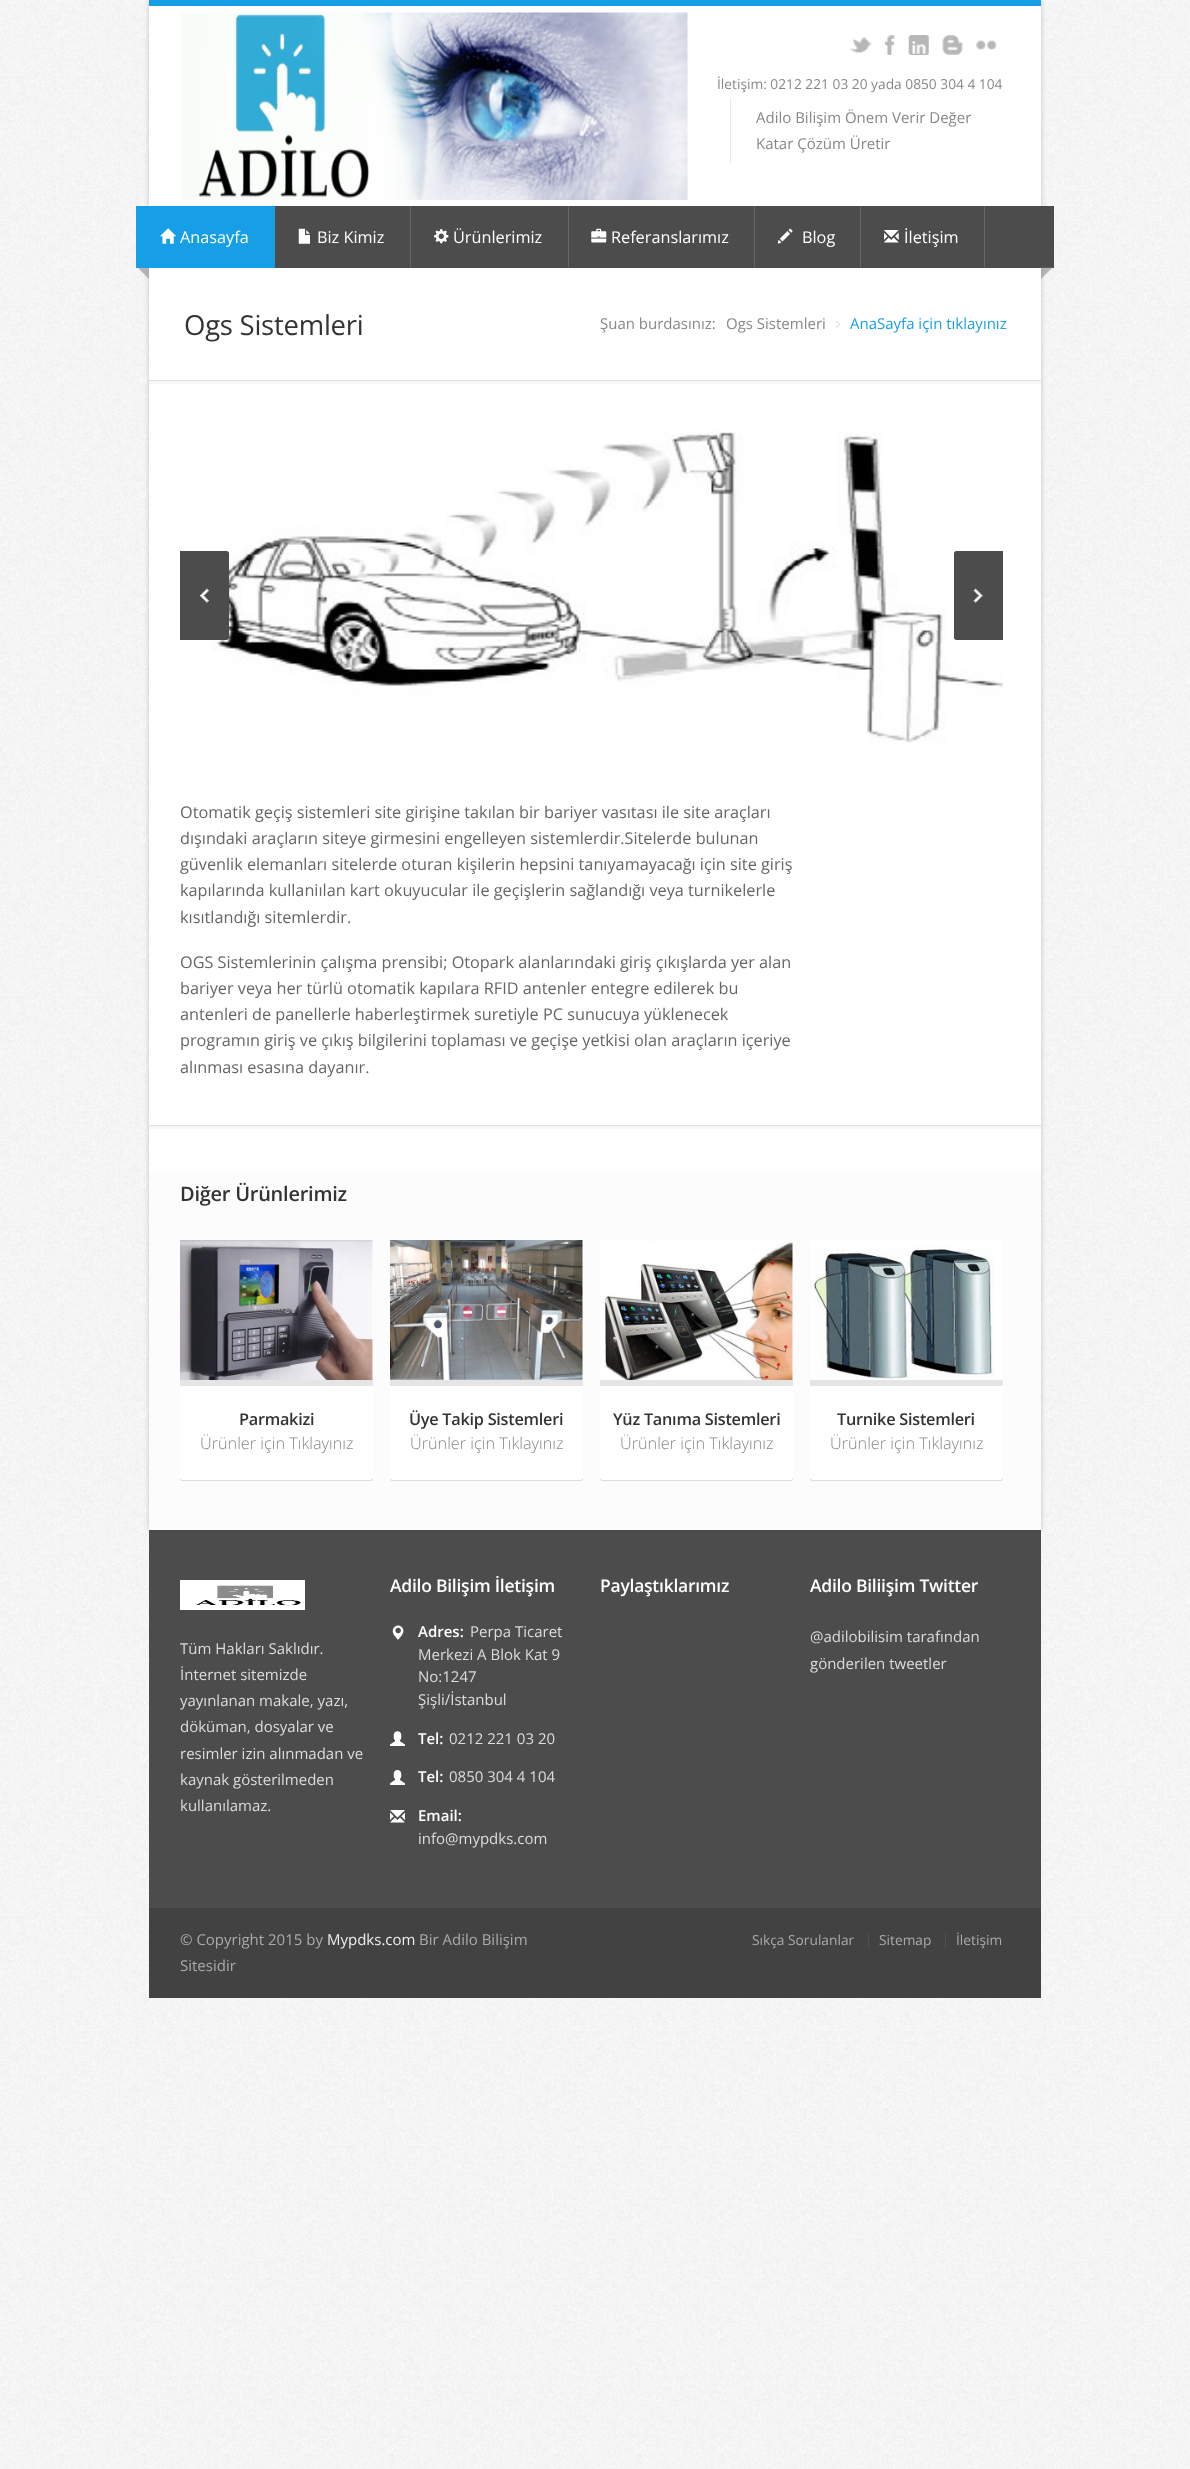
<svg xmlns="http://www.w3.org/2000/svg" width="1190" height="2469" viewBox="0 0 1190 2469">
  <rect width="100%" height="100%" fill="#fff"/>
  <image x="0" y="0" width="1190" height="2469" href="img/1.png"/>
  <path d="M149 0h892v1530H149z" fill="#00000033" filter="blur(2.5px)"/>
  <path d="M149 6h892v1167H149z" fill="#fff"/>
  <path d="M149 0h892v6H149z" fill="#169fe6"/>
  <image x="180" y="12" width="508" height="188" href="img/2.png"/>
  <image x="850" y="37" width="22" height="16" href="img/3.png"/>
  <image x="885" y="35" width="10" height="20" href="img/4.png"/>
  <image x="908" y="35" width="21" height="20" href="img/5.png"/>
  <image x="942" y="35" width="21" height="20" href="img/6.png"/>
  <image x="976" y="40" width="21" height="10" href="img/7.png"/>
  <path d="M730 98h1v65H730z" fill="#e8e8e8"/>
  <path d="M275 206h779v62H275z" fill="#4c4c4c"/>
  <path d="M149 267.5V279L137.5 267.5Z" fill="#88888894"/>
  <path d="M136 206h139v62H136z" fill="#169fe6"/>
  <image x="160" y="228" width="16" height="16" href="img/8.png"/>
  <path d="M410 206h1v62H410z" fill="#666"/>
  <image x="298" y="228" width="12" height="16" href="img/9.png"/>
  <path d="M568 206h1v62H568z" fill="#666"/>
  <image x="434" y="229" width="15" height="15" href="img/10.png"/>
  <path d="M754 206h1v62H754z" fill="#666"/>
  <image x="591" y="228" width="16" height="15" href="img/11.png"/>
  <path d="M860 206h1v62H860z" fill="#666"/>
  <image x="778" y="228" width="15" height="16" href="img/12.png"/>
  <path d="M984 206h1v62H984z" fill="#666"/>
  <image x="884" y="230" width="15" height="13" href="img/13.png"/>
  <path d="M1041 267.5H1052.5L1041 279Z" fill="#88888894"/>
  <path d="M149 381h892v3H149z" fill="#f7f7f7"/>
  <path d="M149 380h892v1H149z" fill="#e0e0e0"/>
  <image x="836" y="321" width="4" height="7" href="img/14.png"/>
  <image x="180" y="431" width="823" height="312" href="img/15.png"/>
  <path d="M180 551H226.5C228 551 229 552 229 553.5V637.5C229 639 228 640 226.5 640H180Z" fill="#4c4c4c"/>
  <image x="200" y="588" width="9" height="15" href="img/16.png"/>
  <path d="M956.5 551H1003V640H956.5C955 640 954 639 954 637.5V553.5C954 552 955 551 956.5 551Z" fill="#4c4c4c"/>
  <image x="973" y="588" width="10" height="15" href="img/17.png"/>
  <path d="M149 1126h892v3H149z" fill="#f7f7f7"/>
  <path d="M149 1125h892v1H149z" fill="#e0e0e0"/>
  <path d="M149 1173h892v357H149z" fill="#fcfcfc"/>
  <path d="M180 1240h193v240H180z" fill="#fff"/>
  <rect x="180" y="1380" width="193" height="100" rx="2.5" fill="#0000001a" filter="blur(0.5px)"/>
  <rect x="180" y="1381" width="193" height="100" rx="2.5" fill="#0000001f" filter="blur(0.5px)"/>
  <image x="180" y="1240" width="193" height="140" href="img/18.png"/>
  <path d="M180 1380H373V1477.5C373 1479 372 1480 370.5 1480H182.5C181 1480 180 1479 180 1477.5Z" fill="#fff"/>
  <path d="M180 1380h193v6H180z" fill="#e5e5e5"/>
  <path d="M390 1240h193v240H390z" fill="#fff"/>
  <rect x="390" y="1380" width="193" height="100" rx="2.5" fill="#0000001a" filter="blur(0.5px)"/>
  <rect x="390" y="1381" width="193" height="100" rx="2.5" fill="#0000001f" filter="blur(0.5px)"/>
  <image x="390" y="1240" width="193" height="140" href="img/19.png"/>
  <path d="M390 1380H583V1477.5C583 1479 582 1480 580.5 1480H392.5C391 1480 390 1479 390 1477.5Z" fill="#fff"/>
  <path d="M390 1380h193v6H390z" fill="#e5e5e5"/>
  <path d="M600 1240h193v240H600z" fill="#fff"/>
  <rect x="600" y="1380" width="193" height="100" rx="2.5" fill="#0000001a" filter="blur(0.5px)"/>
  <rect x="600" y="1381" width="193" height="100" rx="2.5" fill="#0000001f" filter="blur(0.5px)"/>
  <image x="604" y="1240" width="189" height="140" href="img/20.png"/>
  <path d="M600 1380H793V1477.5C793 1479 792 1480 790.5 1480H602.5C601 1480 600 1479 600 1477.5Z" fill="#fff"/>
  <path d="M600 1380h193v6H600z" fill="#e5e5e5"/>
  <path d="M810 1240h193v240H810z" fill="#fff"/>
  <rect x="810" y="1380" width="193" height="100" rx="2.5" fill="#0000001a" filter="blur(0.5px)"/>
  <rect x="810" y="1381" width="193" height="100" rx="2.5" fill="#0000001f" filter="blur(0.5px)"/>
  <image x="810" y="1246" width="185" height="134" href="img/21.png"/>
  <path d="M810 1380H1003V1477.5C1003 1479 1002 1480 1000.5 1480H812.5C811 1480 810 1479 810 1477.5Z" fill="#fff"/>
  <path d="M810 1380h193v6H810z" fill="#e5e5e5"/>
  <path d="M149 1530h892v378H149z" fill="#4c4c4c"/>
  <image x="392" y="1625" width="12" height="15" href="img/22.png"/>
  <image x="390" y="1731" width="15" height="15" href="img/23.png"/>
  <image x="390" y="1770" width="15" height="15" href="img/24.png"/>
  <image x="390" y="1810" width="15" height="13" href="img/25.png"/>
  <image x="180" y="1580" width="125" height="30" href="img/26.png"/>
  <path d="M149 1908h892v90H149z" fill="#424242"/>
  <path d="M868 1933h1v15H868z" fill="#505050"/>
  <path d="M945 1933h1v15H945z" fill="#505050"/>
  <text x="717" y="89" font-family="Open Sans" font-size="13.75" fill="#888">İletişim: 0212 221 03 20 yada 0850 304 4 104</text>
  <g font-family="Open Sans" font-size="15" fill="#888">
    <text x="756" y="123">Adilo Bilişim Önem Verir Değer</text>
    <text x="756" y="149">Katar Çözüm Üretir</text>
  </g>
  <g font-family="Open Sans" font-size="16.25" fill="#fff">
    <text x="180" y="243">Anasayfa</text>
    <text x="317" y="243">Biz Kimiz</text>
    <text x="453" y="243">Ürünlerimiz</text>
    <text x="611" y="243">Referanslarımız</text>
    <text x="802" y="243">Blog</text>
    <text x="904" y="243">İletişim</text>
  </g>
  <text x="184" y="335" font-family="Open Sans" font-size="27.5" letter-spacing="-0.25" fill="#333">Ogs Sistemleri</text>
  <g font-family="Open Sans" font-size="15" fill="#888">
    <text x="600" y="329">Şuan burdasınız:</text>
    <text x="726" y="329">Ogs Sistemleri</text>
  </g>
  <text x="850" y="329" font-family="Open Sans" font-size="15" fill="#169fe6">AnaSayfa için tıklayınız</text>
  <g font-family="Open Sans" font-size="16.25" fill="#666">
    <text x="180" y="818">Otomatik geçiş sistemleri site girişine takılan bir bariyer vasıtası ile site araçları</text>
    <text x="180" y="844">dışındaki araçların siteye girmesini engelleyen sistemlerdir.Sitelerde bulunan</text>
    <text x="180" y="870">güvenlik elemanları sitelerde oturan kişilerin hepsini tanıyamayacağı için site giriş</text>
    <text x="180" y="896">kapılarında kullaniılan kart okuyucular ile geçişlerin sağlandığı veya turnikelerle</text>
    <text x="180" y="923">kısıtlandığı sitemlerdir.</text>
    <text x="180" y="968">OGS Sistemlerinin çalışma prensibi; Otopark alanlarındaki giriş çıkışlarda yer alan</text>
    <text x="180" y="994">bariyer veya her türlü otomatik kapılara RFID antenler entegre edilerek bu</text>
    <text x="180" y="1020">antenleri de panellerle haberleştirmek suretiyle PC sunucuya yüklenecek</text>
    <text x="180" y="1046">programın giriş ve çıkış bilgilerini toplaması ve geçişe yetkisi olan araçların içeriye</text>
    <text x="180" y="1073">alınması esasına dayanır.</text>
  </g>
  <text x="180" y="1201" font-family="Open Sans" font-size="20" font-weight="600" letter-spacing="-0.25" fill="#333">Diğer Ürünlerimiz</text>
  <text x="239" y="1425" font-family="Open Sans" font-size="16.25" font-weight="600" letter-spacing="-0.25" fill="#333">Parmakizi</text>
  <text x="200" y="1449" font-family="Open Sans" font-size="16.25" font-weight="300" fill="#888">Ürünler için Tıklayınız</text>
  <text x="409" y="1425" font-family="Open Sans" font-size="16.25" font-weight="600" letter-spacing="-0.25" fill="#333">Üye Takip Sistemleri</text>
  <text x="410" y="1449" font-family="Open Sans" font-size="16.25" font-weight="300" fill="#888">Ürünler için Tıklayınız</text>
  <text x="613" y="1425" font-family="Open Sans" font-size="16.25" font-weight="600" letter-spacing="-0.25" fill="#333">Yüz Tanıma Sistemleri</text>
  <text x="620" y="1449" font-family="Open Sans" font-size="16.25" font-weight="300" fill="#888">Ürünler için Tıklayınız</text>
  <text x="837" y="1425" font-family="Open Sans" font-size="16.25" font-weight="600" letter-spacing="-0.25" fill="#333">Turnike Sistemleri</text>
  <text x="830" y="1449" font-family="Open Sans" font-size="16.25" font-weight="300" fill="#888">Ürünler için Tıklayınız</text>
  <text x="390" y="1592" font-family="Open Sans" font-size="17.5" font-weight="600" letter-spacing="-0.25" fill="#fff">Adilo Bilişim İletişim</text>
  <text x="418" y="1637" font-family="Open Sans" font-size="15" font-weight="600" fill="#fff">Adres:</text>
  <g font-family="Open Sans" font-size="15" fill="#ddd">
    <text x="470" y="1637">Perpa Ticaret</text>
    <text x="418" y="1660">Merkezi A Blok Kat 9</text>
    <text x="418" y="1682">No:1247</text>
    <text x="418" y="1705">Şişli/İstanbul</text>
  </g>
  <text x="418" y="1744" font-family="Open Sans" font-size="15" font-weight="600" fill="#fff">Tel:</text>
  <text x="449" y="1744" font-family="Open Sans" font-size="15" fill="#ddd">0212 221 03 20</text>
  <text x="418" y="1782" font-family="Open Sans" font-size="15" font-weight="600" fill="#fff">Tel:</text>
  <text x="449" y="1782" font-family="Open Sans" font-size="15" fill="#ddd">0850 304 4 104</text>
  <text x="418" y="1821" font-family="Open Sans" font-size="15" font-weight="600" fill="#fff">Email:</text>
  <text x="418" y="1844" font-family="Open Sans" font-size="15" fill="#ddd">info@mypdks.com</text>
  <g font-family="Open Sans" font-size="17.5" font-weight="600" letter-spacing="-0.25" fill="#fff">
    <text x="600" y="1592">Paylaştıklarımız</text>
    <text x="810" y="1592">Adilo Biliişim Twitter</text>
  </g>
  <g font-family="Open Sans" font-size="15" fill="#ddd">
    <text x="810" y="1642">@adilobilisim tarafından</text>
    <text x="810" y="1669">gönderilen tweetler</text>
    <text x="180" y="1654">Tüm Hakları Saklıdır.</text>
    <text x="180" y="1680">İnternet sitemizde</text>
    <text x="180" y="1706">yayınlanan makale, yazı,</text>
    <text x="180" y="1732">döküman, dosyalar ve</text>
    <text x="180" y="1759">resimler izin alınmadan ve</text>
    <text x="180" y="1785">kaynak gösterilmeden</text>
    <text x="180" y="1811">kullanılamaz.</text>
  </g>
  <text x="180" y="1945" font-family="Open Sans" font-size="15" fill="#aaa">© Copyright 2015 by</text>
  <text x="327" y="1945" font-family="Open Sans" font-size="15" fill="#eee">Mypdks.com</text>
  <g font-family="Open Sans" font-size="15" fill="#aaa">
    <text x="419" y="1945">Bir Adilo Bilişim</text>
    <text x="180" y="1971">Sitesidir</text>
  </g>
  <g font-family="Open Sans" font-size="13.75" fill="#aaa">
    <text x="752" y="1945">Sıkça Sorulanlar</text>
    <text x="879" y="1945">Sitemap</text>
    <text x="956" y="1945">İletişim</text>
  </g>
</svg>
